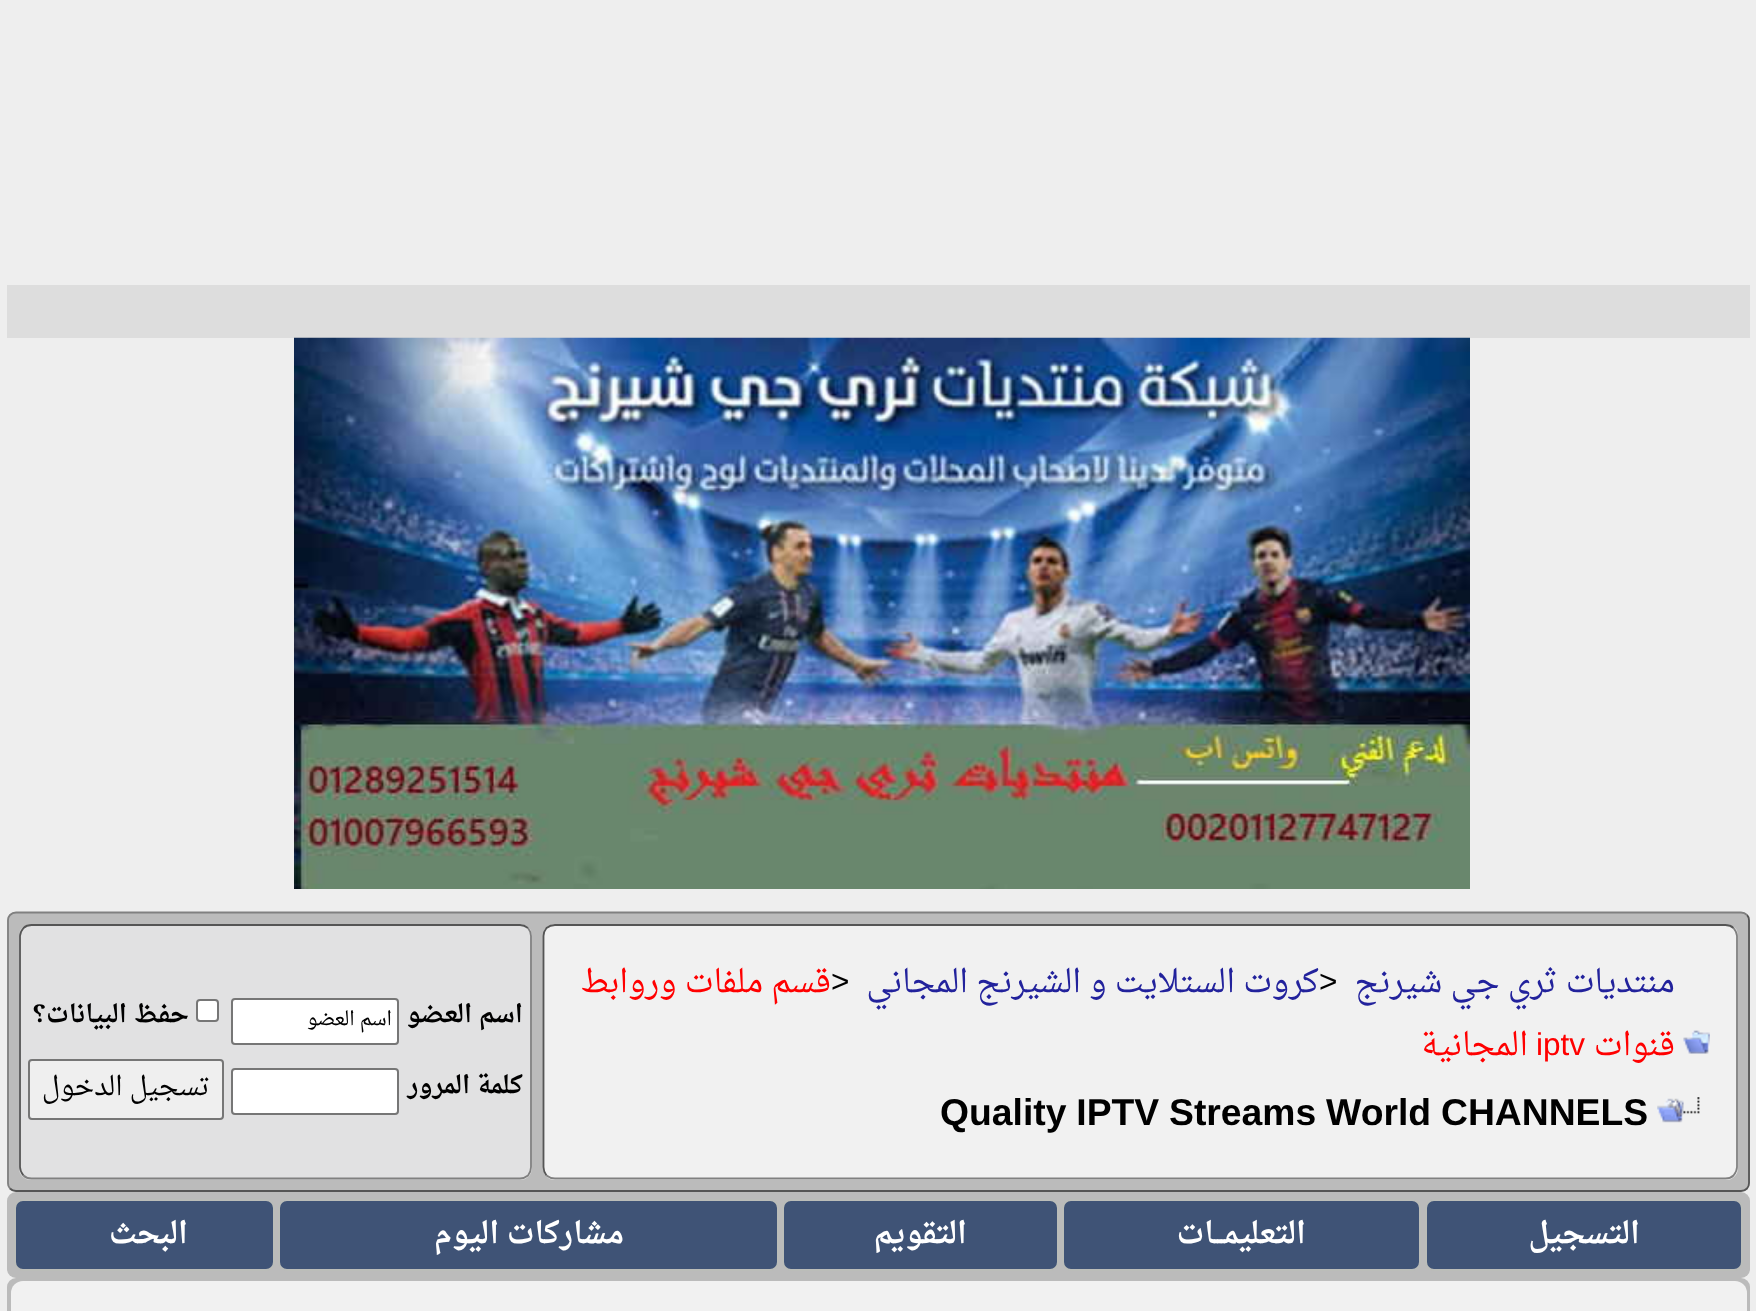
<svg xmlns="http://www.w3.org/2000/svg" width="1756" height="1311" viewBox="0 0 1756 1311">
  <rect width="100%" height="100%" fill="#eee"/>
  <path d="M7 285h1743v53H7z" fill="#ddd"/>
  <image x="294" y="337" width="1176" height="552" href="img/1.png"/>
  <rect x="7" y="912" width="1743" height="280" rx="9" fill="#bbb"/>
  <path d="M1747 915C1748.5 916.5 1749 918.5 1749 920.5V1183C1749 1185 1748.5 1187 1747 1188.5C1745.5 1190 1743.5 1191 1741 1191H16C13.5 1191 11.5 1190 10 1188.5" fill="none" stroke="#555" stroke-width="1.8"/>
  <path d="M10 1188.5C8.5 1187 8 1185 8 1183V920.5C8 918.5 8.5 916.5 10 915C11.5 913.5 13.5 912.5 16 912.5H1741C1743.5 912.5 1745.5 913.5 1747 915" fill="none" stroke="#808080" stroke-width="1.8"/>
  <rect x="543" y="924" width="1195" height="256" rx="12" fill="#f1f1f1"/>
  <path d="M1733.5 928C1735.5 930.5 1737 933 1737 936V1167C1737 1170.5 1735.5 1173 1733.5 1175.5C1731.5 1177.5 1728.5 1178.5 1725.5 1178.5H555C551.5 1178.5 549 1177.5 546.5 1175.5" fill="none" stroke="#808080" stroke-width="1.8"/>
  <path d="M546.5 1175.5C544.5 1173 543.5 1170.5 543.5 1167V936C543.5 933 544.5 930.5 546.5 928C549 926 551.5 925 555 925H1725.5C1728.5 925 1731.5 926 1733.5 928" fill="none" stroke="#555" stroke-width="1.8"/>
  <image x="1683" y="1030" width="27" height="24" href="img/2.png"/>
  <image x="1657" y="1097" width="43" height="26" href="img/3.png"/>
  <rect x="19" y="924" width="513" height="256" rx="12" fill="#e1e1e2"/>
  <path d="M528 928C530 930.5 531 933 531 936V1167C531 1170.5 530 1173 528 1175.5C525.5 1177.5 523 1178.5 520 1178.5H31.5C28.5 1178.5 25.5 1177.5 23.5 1175.5" fill="none" stroke="#808080" stroke-width="1.8"/>
  <path d="M23.5 1175.5C21.5 1173 20 1170.5 20 1167V936C20 933 21.5 930.5 23.5 928C25.5 926 28.5 925 31.5 925H520C523 925 525.5 926 528 928" fill="none" stroke="#555" stroke-width="1.8"/>
  <rect x="232" y="999" width="166" height="45" rx="3" fill="#fff" stroke="#767676" stroke-width="2"/>
  <rect x="197" y="1000" width="21" height="21" rx="3" fill="#fff" stroke="#767676" stroke-width="2"/>
  <rect x="232" y="1069" width="166" height="45" rx="3" fill="#fff" stroke="#767676" stroke-width="2"/>
  <rect x="29" y="1060" width="194" height="59" rx="3" fill="#efefef" stroke="#767676" stroke-width="2"/>
  <rect x="7" y="1192" width="1743" height="86" rx="9" fill="#bbb"/>
  <rect x="1426" y="1200" width="316" height="70" rx="8" fill="#3f5376" stroke="#bbbdb9" stroke-width="2"/>
  <rect x="1063" y="1200" width="357" height="70" rx="8" fill="#3f5376" stroke="#bbbdb9" stroke-width="2"/>
  <rect x="783" y="1200" width="275" height="70" rx="8" fill="#3f5376" stroke="#bbbdb9" stroke-width="2"/>
  <rect x="279" y="1200" width="499" height="70" rx="8" fill="#3f5376" stroke="#bbbdb9" stroke-width="2"/>
  <rect x="15" y="1200" width="259" height="70" rx="8" fill="#3f5376" stroke="#bbbdb9" stroke-width="2"/>
  <rect x="7" y="1278" width="1743" height="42" rx="9" fill="#bbb"/>
  <rect x="11" y="1281" width="1736" height="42" rx="12" fill="#f1f1f1"/>
  <text x="1675" y="992" font-family="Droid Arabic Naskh" font-size="31.5" direction="rtl" fill="#22229c">منتديات ثري جي شيرنج</text>
  <text x="1319" y="992" font-family="Liberation Sans" font-size="31.5" fill="#000">&gt;</text>
  <text x="1319" y="992" font-family="Droid Arabic Naskh" font-size="31.5" direction="rtl" fill="#22229c">كروت الستلايت و الشيرنج المجاني</text>
  <text x="831" y="992" font-family="Liberation Sans" font-size="31.5" fill="#000">&gt;</text>
  <g font-family="Droid Arabic Naskh" font-size="31.5" direction="rtl" fill="#f00">
    <text x="831" y="992">قسم ملفات وروابط</text>
    <text x="1675" y="1055">قنوات</text>
  </g>
  <text x="1536" y="1055" font-family="Liberation Sans" font-size="31.5" fill="#f00">iptv</text>
  <text x="1528" y="1055" font-family="Droid Arabic Naskh" font-size="31.5" direction="rtl" fill="#f00">المجانية</text>
  <text x="940" y="1125" word-spacing="-0.5" font-family="Liberation Sans" font-size="37.3" font-weight="bold" fill="#000">Quality IPTV Streams World CHANNELS</text>
  <text x="523" y="1022" font-family="Droid Arabic Naskh" font-size="24.5" font-weight="bold" direction="rtl" fill="#000">اسم العضو</text>
  <text x="392" y="1025" font-family="Droid Arabic Naskh" font-size="19.25" direction="rtl" fill="#000">اسم العضو</text>
  <g font-family="Droid Arabic Naskh" font-size="24.5" font-weight="bold" direction="rtl" fill="#000">
    <text x="189" y="1022">حفظ البيانات؟</text>
    <text x="523" y="1093">كلمة المرور</text>
  </g>
  <text x="210" y="1095" font-family="Droid Arabic Naskh" font-size="26.25" direction="rtl" fill="#000">تسجيل الدخول</text>
  <g font-family="Droid Arabic Naskh" font-size="29.75" font-weight="bold" direction="rtl" fill="#fff">
    <text x="1640" y="1243">التسجيل</text>
    <text x="1306" y="1243">التعليمـــات</text>
    <text x="967" y="1243">التقويم</text>
    <text x="624" y="1243">مشاركات اليوم</text>
    <text x="188" y="1243">البحث</text>
  </g>
</svg>
